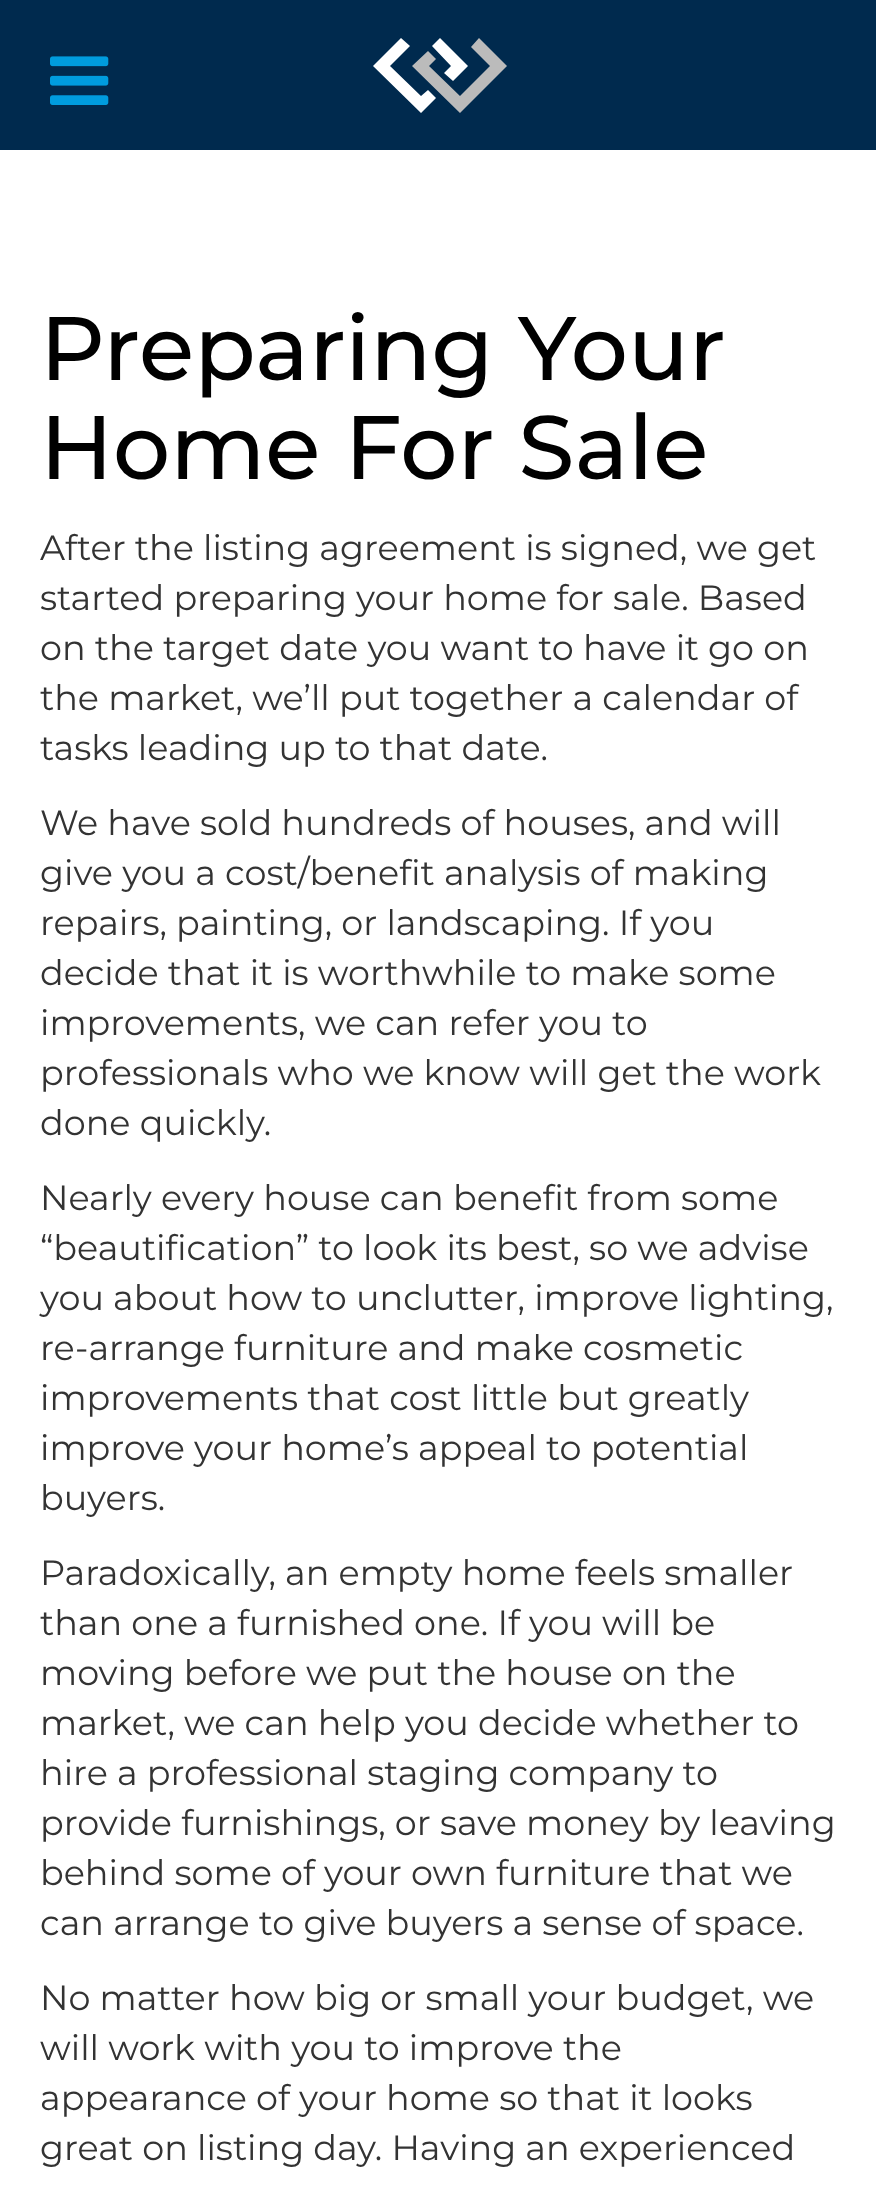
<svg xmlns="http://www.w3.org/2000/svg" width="876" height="2186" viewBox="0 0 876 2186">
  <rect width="100%" height="100%" fill="#fff"/>
  <path d="M0 0h876v150H0z" fill="#002a4e"/>
  <image x="50" y="56" width="59" height="49" href="img/1.png"/>
  <path d="M507 66L460 113L412 66L428 51L436 59L429 66L460 96L490 66L471 47L479 38Z" fill="#bbb"/>
  <path d="M440 38L432 46L451 66L444 73L453 81L468 66ZM428 90L436 98L421 113L373 66L401 38L410 46L390 66L421 96Z" fill="#fff"/>
  <g font-family="Montserrat" font-size="90" font-weight="500" fill="#000">
    <text x="40" y="380">Preparing Your</text>
    <text x="40" y="479">Home For Sale</text>
  </g>
  <g font-family="Montserrat" font-size="35" fill="#333">
    <text x="40" y="560">After the listing agreement is signed, we get</text>
    <text x="40" y="610">started preparing your home for sale. Based</text>
    <text x="40" y="660">on the target date you want to have it go on</text>
    <text x="40" y="710">the market, we’ll put together a calendar of</text>
    <text x="40" y="760">tasks leading up to that date.</text>
    <text x="40" y="835">We have sold hundreds of houses, and will</text>
    <text x="40" y="885">give you a cost/benefit analysis of making</text>
    <text x="40" y="935">repairs, painting, or landscaping. If you</text>
    <text x="40" y="985">decide that it is worthwhile to make some</text>
    <text x="40" y="1035">improvements, we can refer you to</text>
    <text x="40" y="1085">professionals who we know will get the work</text>
    <text x="40" y="1135">done quickly.</text>
    <text x="40" y="1210">Nearly every house can benefit from some</text>
    <text x="40" y="1260">“beautification” to look its best, so we advise</text>
    <text x="40" y="1310">you about how to unclutter, improve lighting,</text>
    <text x="40" y="1360">re-arrange furniture and make cosmetic</text>
    <text x="40" y="1410">improvements that cost little but greatly</text>
    <text x="40" y="1460">improve your home’s appeal to potential</text>
    <text x="40" y="1510">buyers.</text>
    <text x="40" y="1585">Paradoxically, an empty home feels smaller</text>
    <text x="40" y="1635">than one a furnished one. If you will be</text>
    <text x="40" y="1685">moving before we put the house on the</text>
    <text x="40" y="1735">market, we can help you decide whether to</text>
    <text x="40" y="1785">hire a professional staging company to</text>
    <text x="40" y="1835">provide furnishings, or save money by leaving</text>
    <text x="40" y="1885">behind some of your own furniture that we</text>
    <text x="40" y="1935">can arrange to give buyers a sense of space.</text>
    <text x="40" y="2010">No matter how big or small your budget, we</text>
    <text x="40" y="2060">will work with you to improve the</text>
    <text x="40" y="2110">appearance of your home so that it looks</text>
    <text x="40" y="2160">great on listing day. Having an experienced</text>
  </g>
</svg>
